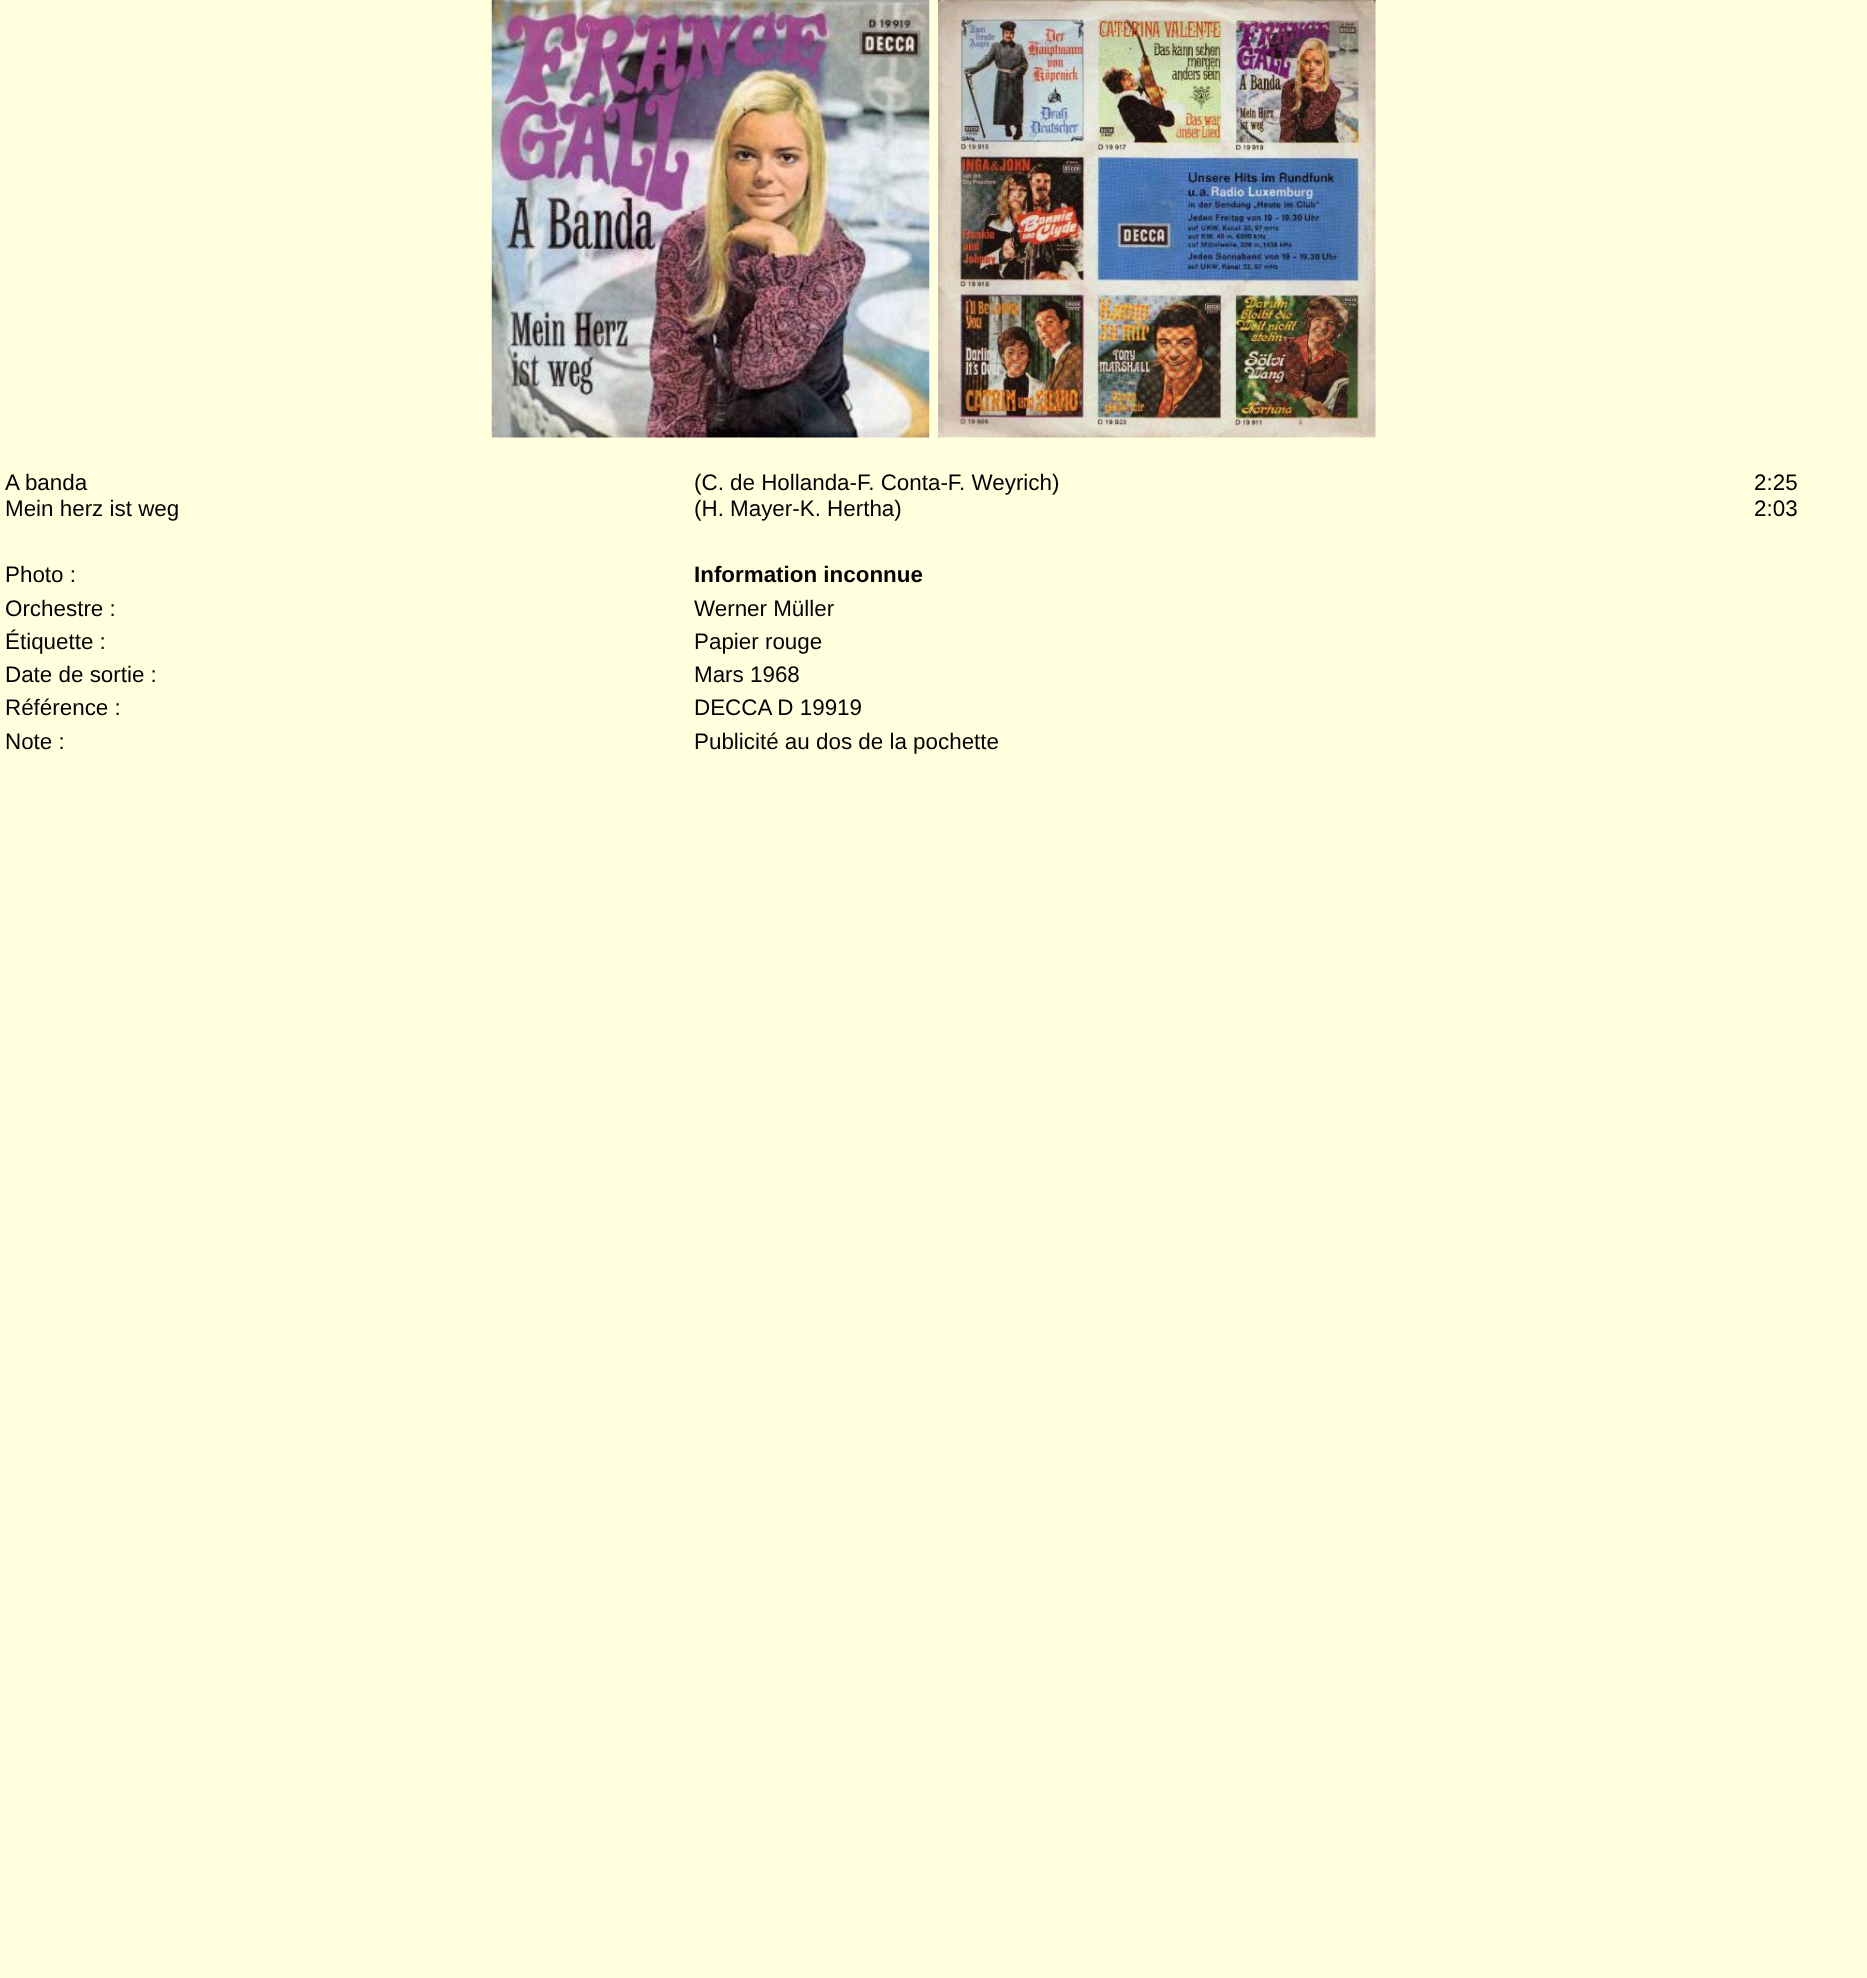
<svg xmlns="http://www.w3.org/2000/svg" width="1867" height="1978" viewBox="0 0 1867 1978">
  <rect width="100%" height="100%" fill="#ffd"/>
  <image x="491" y="0" width="439" height="438" href="img/1.png"/>
  <image x="938" y="0" width="438" height="438" href="img/2.png"/>
  <g font-family="Liberation Sans" font-size="22.4" fill="#000">
    <text x="5" y="490">A banda</text>
    <text x="5" y="516">Mein herz ist weg</text>
    <text x="694" y="490">(C. de Hollanda-F. Conta-F. Weyrich)</text>
    <text x="694" y="516">(H. Mayer-K. Hertha)</text>
    <text x="1754" y="490">2:25</text>
    <text x="1754" y="516">2:03</text>
    <text x="5" y="582">Photo :</text>
  </g>
  <text x="694" y="582" font-family="Liberation Sans" font-size="22.4" font-weight="bold" fill="#000">Information inconnue</text>
  <g font-family="Liberation Sans" font-size="22.4" fill="#000">
    <text x="5" y="616">Orchestre :</text>
    <text x="694" y="616">Werner Müller</text>
    <text x="5" y="649">Étiquette :</text>
    <text x="694" y="649">Papier rouge</text>
    <text x="5" y="682">Date de sortie :</text>
    <text x="694" y="682">Mars 1968</text>
    <text x="5" y="715">Référence :</text>
    <text x="694" y="715">DECCA D 19919</text>
    <text x="5" y="749">Note :</text>
    <text x="694" y="749">Publicité au dos de la pochette</text>
  </g>
</svg>
